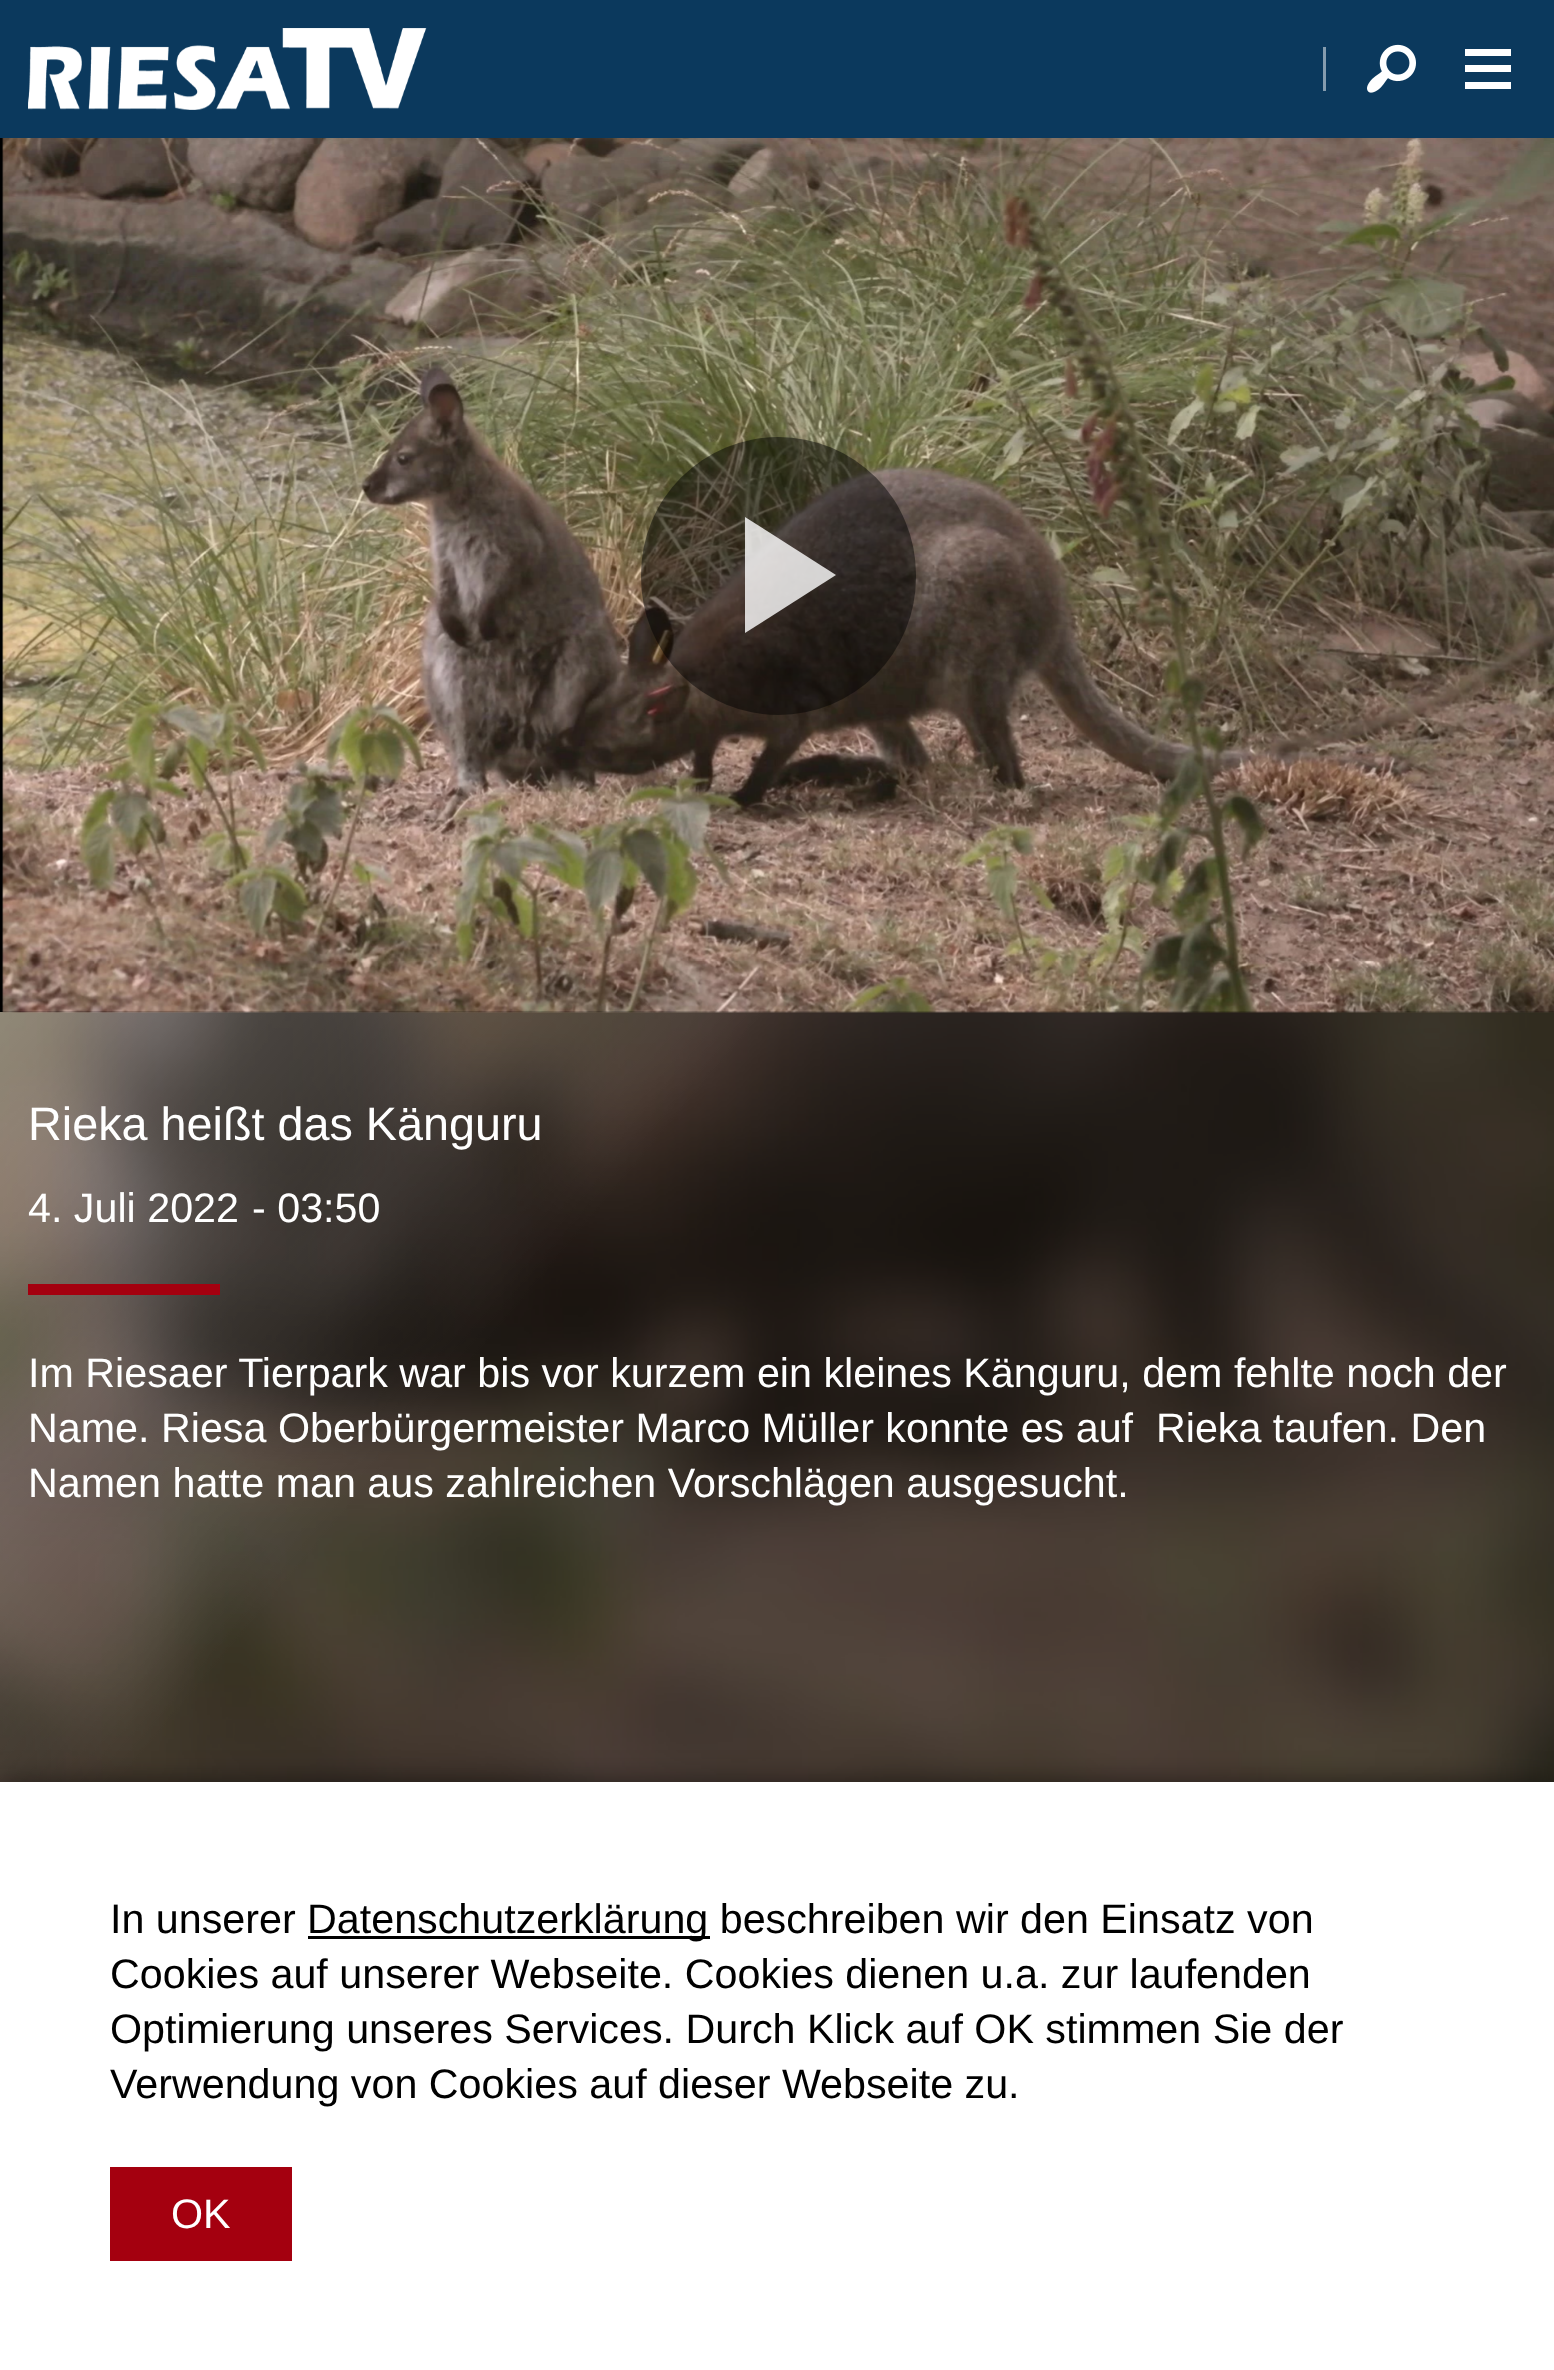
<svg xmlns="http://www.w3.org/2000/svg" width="1554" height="2370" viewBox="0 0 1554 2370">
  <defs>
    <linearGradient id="g1" gradientUnits="userSpaceOnUse" x1="-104" y1="262" x2="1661" y2="1743"><stop offset="0" stop-color="#fff"/><stop offset="0.5" stop-color="#000"/><stop offset="1" stop-color="#000"/></linearGradient>
  </defs>
  <rect width="100%" height="100%" fill="#fff"/>
  <path d="M0 0h1554v138H0z" fill="#0b395d"/>
  <image x="28" y="28" width="399" height="82" href="img/1.png"/>
  <path d="M1323 47h3v44H1323z" fill="#859cae"/>
  <image x="1367" y="44" width="49" height="49" href="img/2.png"/>
  <path d="M1465 72H1511V65H1465ZM1465 89H1511V82H1465ZM1465 49V56H1511V49Z" fill="#fff"/>
  <path d="M0 1012h1554v770H0z" fill="url(#g1)"/>
  <image x="0" y="1012" width="1554" height="770" href="img/6.png"/>
  <image x="2" y="1012" width="1552" height="1" href="img/3.png"/>
  <image x="2" y="1012" width="1552" height="1" href="img/4.png"/>
  <path d="M0 138h1554v874H0z" fill="#000"/>
  <image x="2" y="138" width="1552" height="874" href="img/5.png"/>
  <rect x="641" y="437" width="275" height="278" rx="137.5" fill="#0000007a"/>
  <path d="M745 517V633L836 575Z" fill="#ffffffcc"/>
  <path d="M28 1284h192v11H28z" fill="#a4000f"/>
  <path d="M0 1782h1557v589H0z" fill="#00000080" filter="blur(14px)"/>
  <path d="M0 1782h1554v588H0z" fill="#fff"/>
  <path d="M308 1936h402v3H308z" fill="#000"/>
  <path d="M110 2167h182v94H110z" fill="#a4000f"/>
  <text x="28" y="1140" font-family="Liberation Sans" font-size="46.75" fill="#fff">Rieka heißt das Känguru</text>
  <g font-family="Liberation Sans" font-size="41.25" fill="#fff">
    <text x="28" y="1222">4. Juli 2022</text>
    <text x="252" y="1222">- 03:50</text>
    <text x="28" y="1387">Im Riesaer Tierpark war bis vor kurzem ein kleines Känguru, dem fehlte noch der</text>
    <text x="28" y="1442" xml:space="preserve">Name. Riesa Oberbürgermeister Marco Müller konnte es auf  Rieka taufen. Den</text>
    <text x="28" y="1497">Namen hatte man aus zahlreichen Vorschlägen ausgesucht.</text>
  </g>
  <g font-family="Liberation Sans" font-size="41.25" fill="#000">
    <text x="110" y="1933">In unserer</text>
    <text x="307" y="1933">Datenschutzerklärung beschreiben wir den Einsatz von</text>
    <text x="110" y="1988">Cookies auf unserer Webseite. Cookies dienen u.a. zur laufenden</text>
    <text x="110" y="2043">Optimierung unseres Services. Durch Klick auf OK stimmen Sie der</text>
    <text x="110" y="2098">Verwendung von Cookies auf dieser Webseite zu.</text>
  </g>
  <text x="171" y="2228" font-family="Liberation Sans" font-size="41.25" fill="#fff">OK</text>
</svg>
